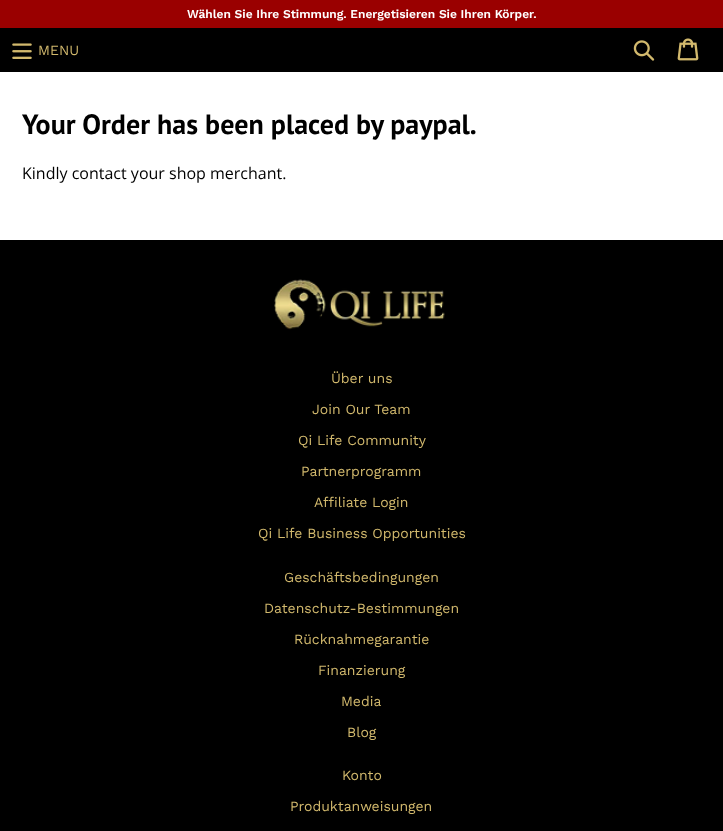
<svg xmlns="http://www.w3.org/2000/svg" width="723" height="831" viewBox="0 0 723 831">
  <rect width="100%" height="100%" fill="#fff"/>
  <path d="M0 0h723v28H0z" fill="#9a0000"/>
  <path d="M0 28h723v44H0z" fill="#000"/>
  <image x="12" y="43" width="20" height="16" href="img/1.png"/>
  <image x="633" y="40" width="22" height="21" href="img/2.png"/>
  <image x="677" y="38" width="22" height="23" href="img/3.png"/>
  <path d="M0 240h723v591H0z" fill="#000"/>
  <image x="274" y="279" width="171" height="51" href="img/4.png"/>
  <text x="187" y="18" font-family="Work Sans" font-size="12" font-weight="600" fill="#fff">Wählen Sie Ihre Stimmung. Energetisieren Sie Ihren Körper.</text>
  <text x="38" y="55" font-family="Work Sans" font-size="14" fill="#d2b96d">MENU</text>
  <text x="22" y="134" font-family="PT Sans" font-size="28" font-weight="bold" fill="#000">Your Order has been placed by paypal.</text>
  <text x="22" y="179" font-family="Open Sans" font-size="16" fill="#000">Kindly contact your shop merchant.</text>
  <g font-family="Work Sans" font-size="14" fill="#d2b96d">
    <text x="331" y="383">Über uns</text>
    <text x="312" y="414">Join Our Team</text>
    <text x="298" y="445">Qi Life Community</text>
    <text x="301" y="476">Partnerprogramm</text>
    <text x="314" y="507">Affiliate Login</text>
    <text x="258" y="538">Qi Life Business Opportunities</text>
    <text x="284" y="582">Geschäftsbedingungen</text>
    <text x="264" y="613">Datenschutz-Bestimmungen</text>
    <text x="294" y="644">Rücknahmegarantie</text>
    <text x="318" y="675">Finanzierung</text>
    <text x="341" y="706">Media</text>
    <text x="347" y="737">Blog</text>
    <text x="342" y="780">Konto</text>
    <text x="290" y="811">Produktanweisungen</text>
  </g>
</svg>
